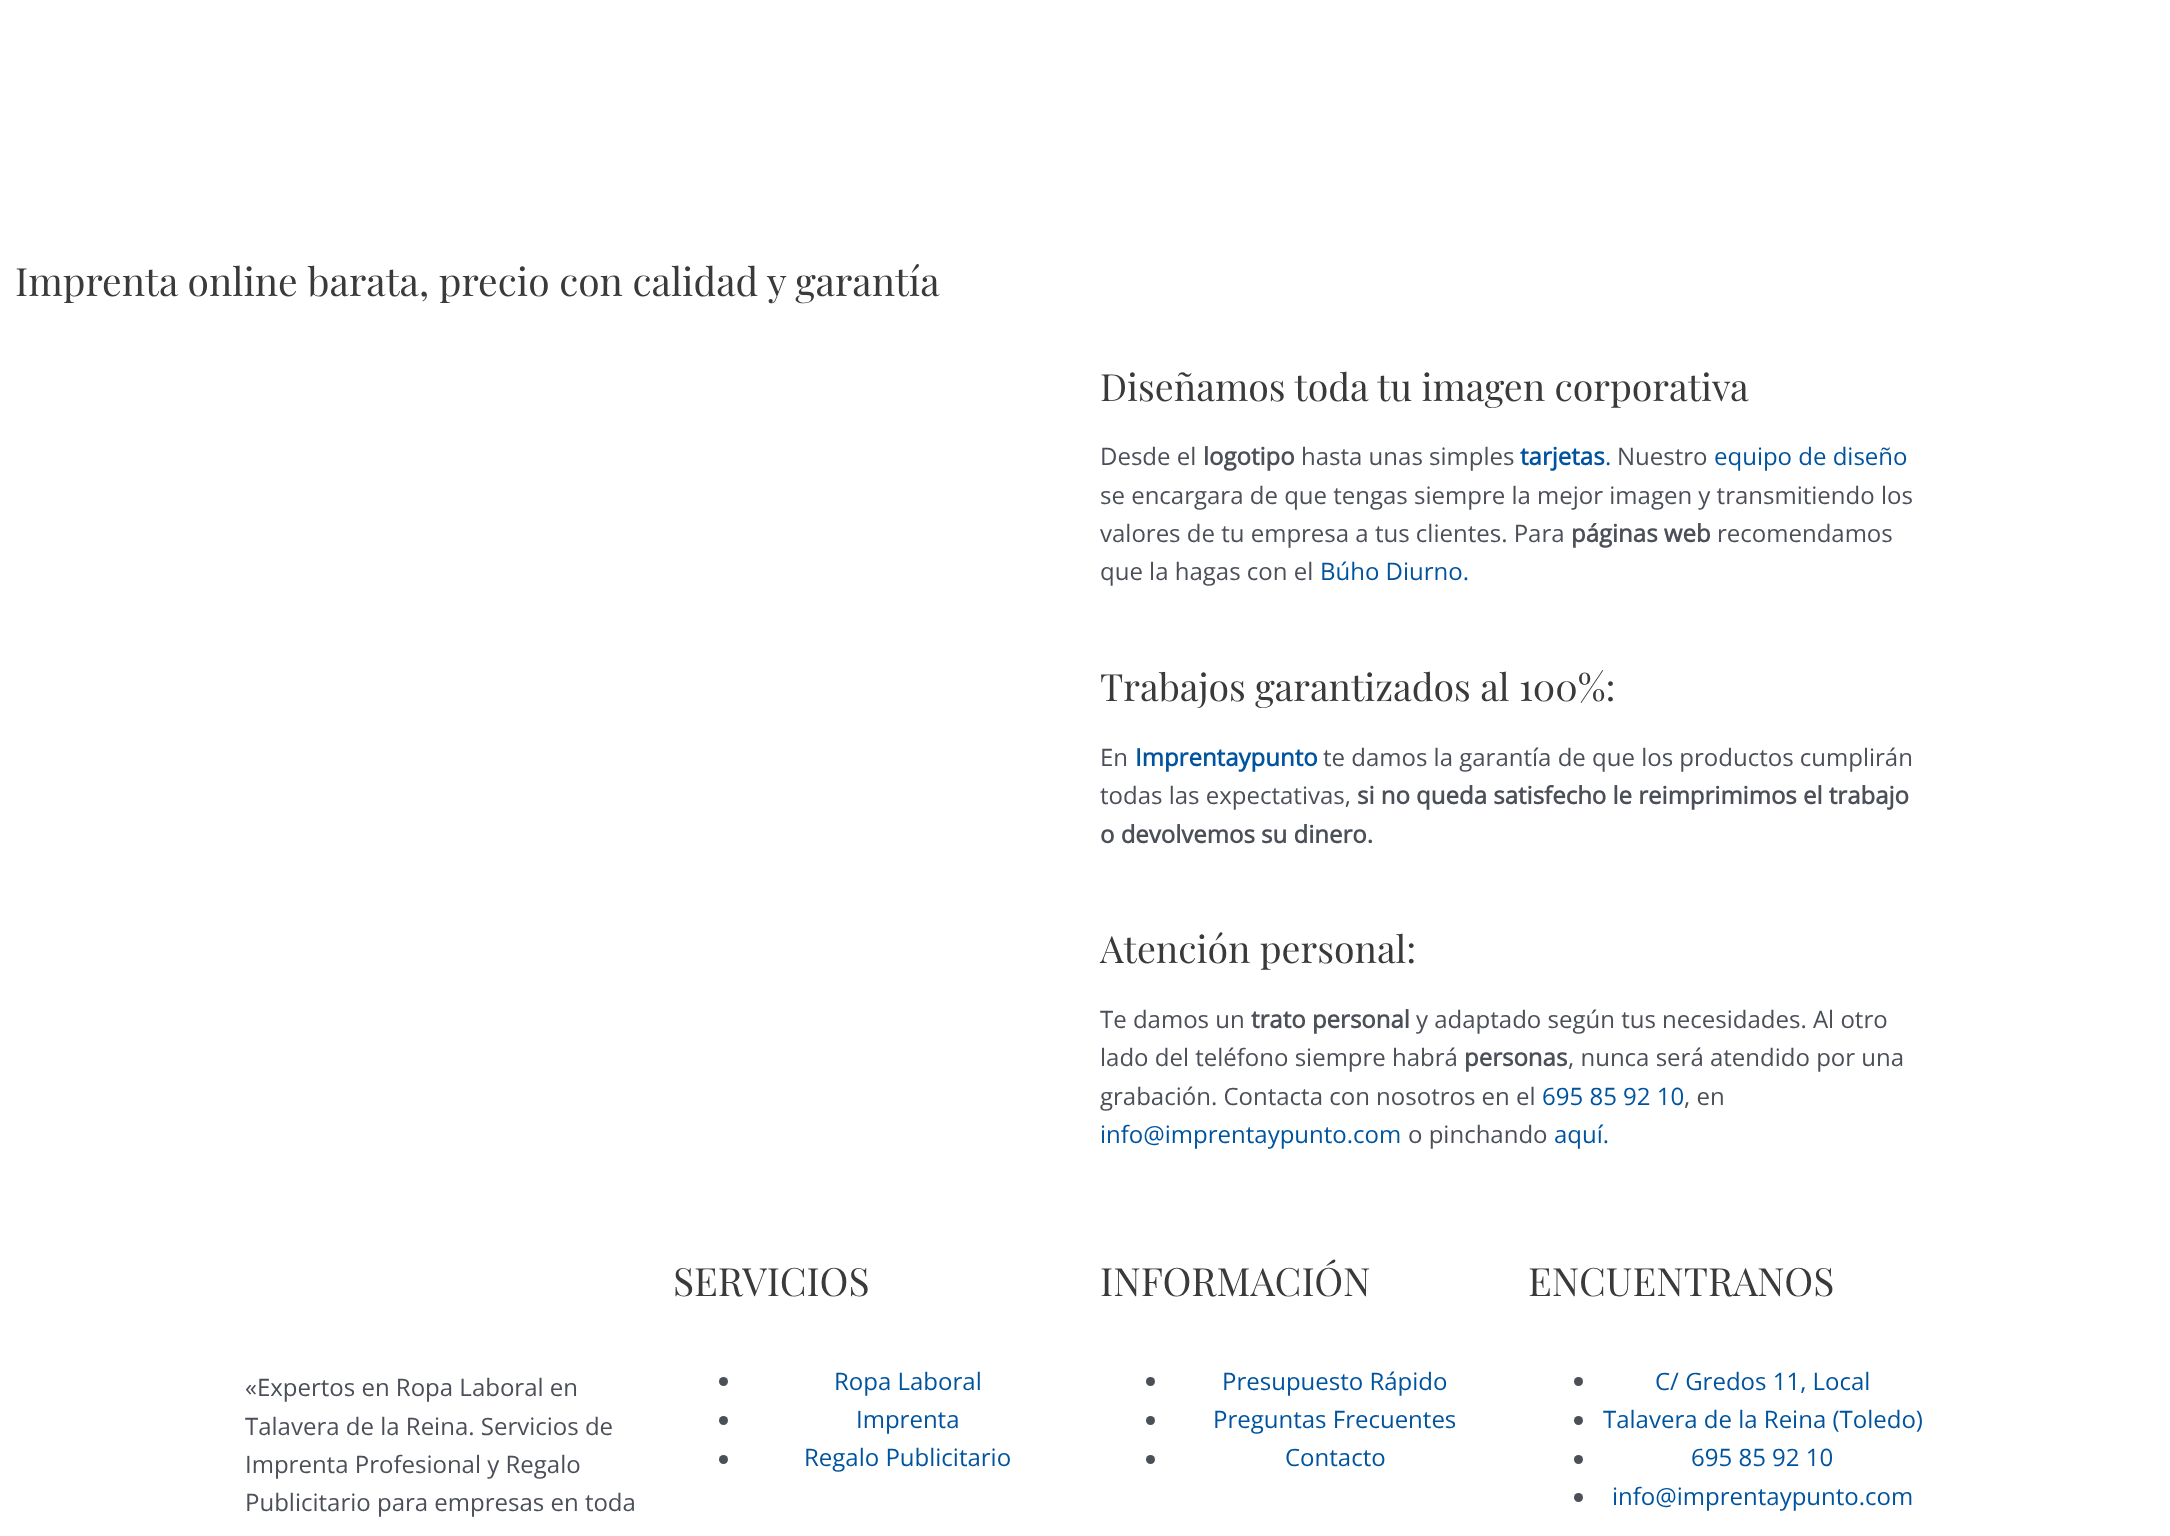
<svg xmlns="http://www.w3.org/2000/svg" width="2170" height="1536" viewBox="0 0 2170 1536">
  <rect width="100%" height="100%" fill="#fff"/>
  <circle cx="723.5" cy="1381.5" r="4.5" fill="#4b4f58"/>
  <circle cx="723.5" cy="1420.5" r="4.5" fill="#4b4f58"/>
  <circle cx="723.5" cy="1459.5" r="4.5" fill="#4b4f58"/>
  <circle cx="1150.5" cy="1381.5" r="4.5" fill="#4b4f58"/>
  <circle cx="1150.5" cy="1420.5" r="4.5" fill="#4b4f58"/>
  <circle cx="1150.5" cy="1459.5" r="4.5" fill="#4b4f58"/>
  <circle cx="1578.5" cy="1381.5" r="4.5" fill="#4b4f58"/>
  <circle cx="1578.5" cy="1420.5" r="4.5" fill="#4b4f58"/>
  <circle cx="1578.5" cy="1459.5" r="4.5" fill="#4b4f58"/>
  <circle cx="1578.5" cy="1497.5" r="4.5" fill="#4b4f58"/>
  <text x="15" y="296" font-family="Playfair Display" font-size="39" fill="#3a3a3a">Imprenta online barata, precio con calidad y garantía</text>
  <text x="1100" y="401" font-family="Playfair Display" font-size="37.5" fill="#3a3a3a">Diseñamos toda tu imagen corporativa</text>
  <text x="1100" y="465" font-family="Open Sans" font-size="24" fill="#4b4f58">Desde el</text>
  <text x="1203" y="465" font-family="Open Sans" font-size="24" font-weight="bold" fill="#4b4f58">logotipo</text>
  <text x="1301" y="465" font-family="Open Sans" font-size="24" fill="#4b4f58">hasta unas simples</text>
  <text x="1520" y="465" font-family="Open Sans" font-size="24" font-weight="bold" fill="#00549f">tarjetas</text>
  <text x="1605" y="465" font-family="Open Sans" font-size="24" fill="#00549f">.</text>
  <text x="1617" y="465" font-family="Open Sans" font-size="24" fill="#4b4f58">Nuestro</text>
  <text x="1714" y="465" font-family="Open Sans" font-size="24" fill="#00549f">equipo de diseño</text>
  <g font-family="Open Sans" font-size="24" fill="#4b4f58">
    <text x="1100" y="504">se encargara de que tengas siempre la mejor imagen y transmitiendo los</text>
    <text x="1100" y="542">valores de tu empresa a tus clientes. Para</text>
  </g>
  <text x="1571" y="542" font-family="Open Sans" font-size="24" font-weight="bold" fill="#4b4f58">páginas web</text>
  <g font-family="Open Sans" font-size="24" fill="#4b4f58">
    <text x="1717" y="542">recomendamos</text>
    <text x="1100" y="580">que la hagas con el</text>
  </g>
  <text x="1320" y="580" font-family="Open Sans" font-size="24" fill="#00549f">Búho Diurno.</text>
  <text x="1100" y="701" font-family="Playfair Display" font-size="37.5" fill="#3a3a3a">Trabajos garantizados al 100%:</text>
  <text x="1100" y="766" font-family="Open Sans" font-size="24" fill="#4b4f58">En</text>
  <text x="1135" y="766" font-family="Open Sans" font-size="24" font-weight="bold" fill="#00549f">Imprentaypunto</text>
  <g font-family="Open Sans" font-size="24" fill="#4b4f58">
    <text x="1323" y="766">te damos la garantía de que los productos cumplirán</text>
    <text x="1100" y="804">todas las expectativas,</text>
  </g>
  <g font-family="Open Sans" font-size="24" font-weight="bold" fill="#4b4f58">
    <text x="1357" y="804">si no queda satisfecho le reimprimimos el trabajo</text>
    <text x="1100" y="843">o devolvemos su dinero.</text>
  </g>
  <text x="1100" y="963" font-family="Playfair Display" font-size="37.5" fill="#3a3a3a">Atención personal:</text>
  <text x="1100" y="1028" font-family="Open Sans" font-size="24" fill="#4b4f58">Te damos un</text>
  <text x="1251" y="1028" font-family="Open Sans" font-size="24" font-weight="bold" fill="#4b4f58">trato personal</text>
  <g font-family="Open Sans" font-size="24" fill="#4b4f58">
    <text x="1416" y="1028">y adaptado según tus necesidades. Al otro</text>
    <text x="1100" y="1066">lado del teléfono siempre habrá</text>
  </g>
  <text x="1464" y="1066" font-family="Open Sans" font-size="24" font-weight="bold" fill="#4b4f58">personas</text>
  <g font-family="Open Sans" font-size="24" fill="#4b4f58">
    <text x="1568" y="1066">, nunca será atendido por una</text>
    <text x="1100" y="1105">grabación. Contacta con nosotros en el</text>
  </g>
  <text x="1542" y="1105" font-family="Open Sans" font-size="24" fill="#00549f">695 85 92 10</text>
  <text x="1684" y="1105" font-family="Open Sans" font-size="24" fill="#4b4f58">, en</text>
  <text x="1100" y="1143" font-family="Open Sans" font-size="24" fill="#00549f">info@imprentaypunto.com</text>
  <text x="1408" y="1143" font-family="Open Sans" font-size="24" fill="#4b4f58">o pinchando</text>
  <text x="1554" y="1143" font-family="Open Sans" font-size="24" fill="#00549f">aquí.</text>
  <g font-family="Open Sans" font-size="24" fill="#4b4f58">
    <text x="245" y="1396">«Expertos en Ropa Laboral en</text>
    <text x="245" y="1435">Talavera de la Reina. Servicios de</text>
    <text x="245" y="1473">Imprenta Profesional y Regalo</text>
    <text x="245" y="1511">Publicitario para empresas en toda</text>
  </g>
  <text x="673" y="1296" font-family="Playfair Display" font-size="39" fill="#3a3a3a">SERVICIOS</text>
  <g font-family="Open Sans" font-size="24" fill="#00549f">
    <text x="834" y="1390">Ropa Laboral</text>
    <text x="856" y="1428">Imprenta</text>
    <text x="804" y="1466">Regalo Publicitario</text>
  </g>
  <text x="1100" y="1296" font-family="Playfair Display" font-size="39" fill="#3a3a3a">INFORMACIÓN</text>
  <g font-family="Open Sans" font-size="24" fill="#00549f">
    <text x="1222" y="1390">Presupuesto Rápido</text>
    <text x="1213" y="1428">Preguntas Frecuentes</text>
    <text x="1285" y="1466">Contacto</text>
  </g>
  <text x="1528" y="1296" font-family="Playfair Display" font-size="39" fill="#3a3a3a">ENCUENTRANOS</text>
  <g font-family="Open Sans" font-size="24" fill="#00549f">
    <text x="1655" y="1390">C/ Gredos 11, Local</text>
    <text x="1603" y="1428">Talavera de la Reina (Toledo)</text>
    <text x="1691" y="1466">695 85 92 10</text>
    <text x="1612" y="1505">info@imprentaypunto.com</text>
  </g>
</svg>
